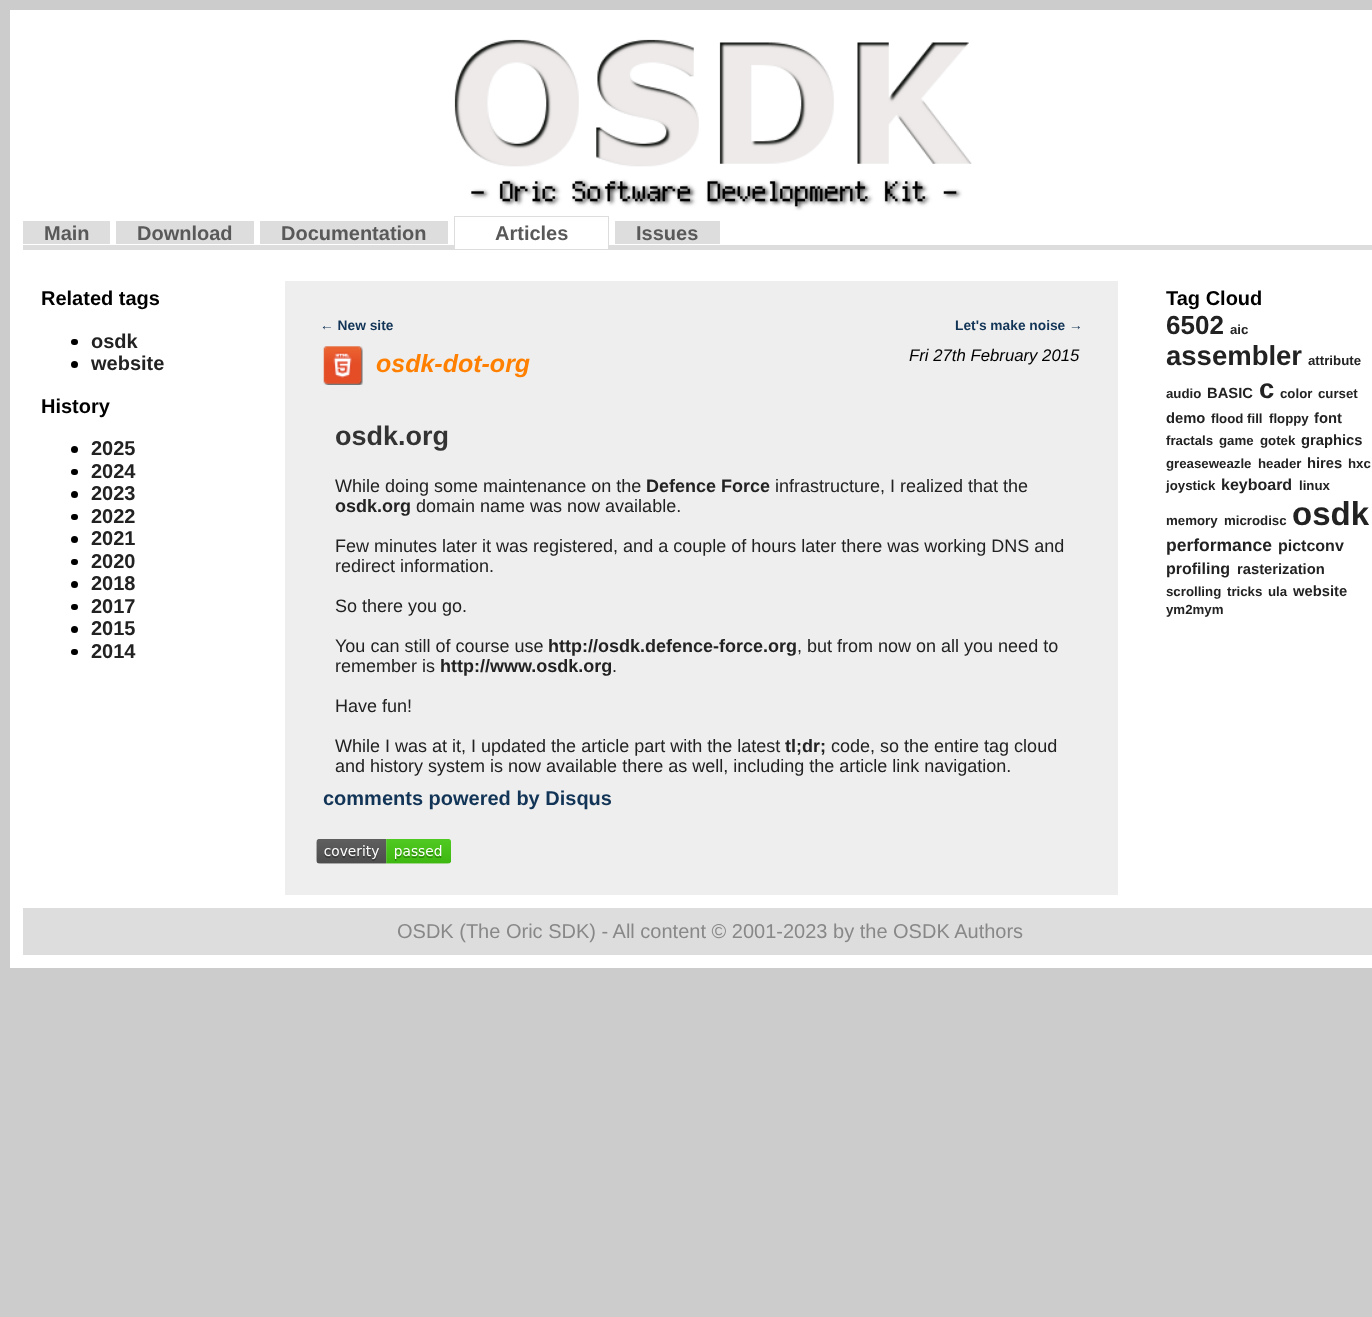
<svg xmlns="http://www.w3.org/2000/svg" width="1372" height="1317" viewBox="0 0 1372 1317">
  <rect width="100%" height="100%" fill="#ccc"/>
  <path d="M10 10h1362v958H10z" fill="#fff"/>
  <image x="454" y="39" width="518" height="172" href="img/1.png"/>
  <path d="M23 245h1349v5H23z" fill="#ddd"/>
  <path d="M23 221h87v23H23z" fill="#ddd"/>
  <path d="M116 221h138v23H116z" fill="#ddd"/>
  <path d="M260 221h188v23H260z" fill="#ddd"/>
  <path d="M455 245h153v4H455z" fill="#fff"/>
  <path d="M454 216h155v1H454z" fill="#ddd"/>
  <path d="M608 216h1v33H608z" fill="#ddd"/>
  <path d="M454 216h1v33H454z" fill="#ddd"/>
  <path d="M615 221h105v23H615z" fill="#ddd"/>
  <rect x="71" y="339" width="7" height="6" rx="3" fill="#000"/>
  <circle cx="74.5" cy="364.5" r="3.5" fill="#000"/>
  <circle cx="74.5" cy="449.5" r="3.5" fill="#000"/>
  <rect x="71" y="469" width="7" height="6" rx="3" fill="#000"/>
  <circle cx="74.5" cy="494.5" r="3.5" fill="#000"/>
  <rect x="71" y="514" width="7" height="6" rx="3" fill="#000"/>
  <circle cx="74.5" cy="539.5" r="3.5" fill="#000"/>
  <rect x="71" y="559" width="7" height="6" rx="3" fill="#000"/>
  <circle cx="74.5" cy="584.5" r="3.5" fill="#000"/>
  <rect x="71" y="604" width="7" height="6" rx="3" fill="#000"/>
  <circle cx="74.5" cy="629.5" r="3.5" fill="#000"/>
  <rect x="71" y="649" width="7" height="6" rx="3" fill="#000"/>
  <path d="M285 281h833v614H285z" fill="#eee"/>
  <image x="323" y="346" width="40" height="39" href="img/2.png"/>
  <image x="316" y="839" width="135" height="25" href="img/3.png"/>
  <path d="M23 908h1349v47H23z" fill="#ddd"/>
  <g font-family="Liberation Sans" font-size="20" font-weight="bold" fill="#595959">
    <text x="44" y="240">Main</text>
    <text x="137" y="240">Download</text>
    <text x="281" y="240">Documentation</text>
    <text x="495" y="240">Articles</text>
    <text x="636" y="240">Issues</text>
  </g>
  <text x="41" y="305" font-family="Liberation Sans" font-size="20" font-weight="bold" fill="#000">Related tags</text>
  <g font-family="Liberation Sans" font-size="20" font-weight="bold" fill="#222">
    <text x="91" y="348">osdk</text>
    <text x="91" y="370">website</text>
  </g>
  <text x="41" y="413" font-family="Liberation Sans" font-size="20" font-weight="bold" fill="#000">History</text>
  <g font-family="Liberation Sans" font-size="20" font-weight="bold" fill="#222">
    <text x="91" y="455">2025</text>
    <text x="91" y="478">2024</text>
    <text x="91" y="500">2023</text>
    <text x="91" y="523">2022</text>
    <text x="91" y="545">2021</text>
    <text x="91" y="568">2020</text>
    <text x="91" y="590">2018</text>
    <text x="91" y="613">2017</text>
    <text x="91" y="635">2015</text>
    <text x="91" y="658">2014</text>
  </g>
  <g font-family="Liberation Sans" font-size="13.75" font-weight="bold" fill="#123456">
    <text x="320" y="330">← New site</text>
    <text x="955" y="330">Let's make noise →</text>
  </g>
  <text x="376" y="372" font-family="Liberation Sans" font-size="25" font-weight="bold" font-style="italic" fill="#ff8000">osdk-dot-org</text>
  <text x="909" y="361" font-family="Liberation Sans" font-size="16.75" font-style="italic" fill="#000">Fri 27th February 2015</text>
  <text x="335" y="445" font-family="Liberation Sans" font-size="27" font-weight="bold" fill="#333">osdk.org</text>
  <text x="335" y="492" font-family="Liberation Sans" font-size="18" fill="#222">While doing some maintenance on the</text>
  <text x="646" y="492" font-family="Liberation Sans" font-size="18" font-weight="bold" fill="#222">Defence Force</text>
  <text x="775" y="492" font-family="Liberation Sans" font-size="18" fill="#222">infrastructure, I realized that the</text>
  <text x="335" y="512" font-family="Liberation Sans" font-size="18" font-weight="bold" fill="#222">osdk.org</text>
  <g font-family="Liberation Sans" font-size="18" fill="#222">
    <text x="416" y="512">domain name was now available.</text>
    <text x="335" y="552">Few minutes later it was registered, and a couple of hours later there was working DNS and</text>
    <text x="335" y="572">redirect information.</text>
    <text x="335" y="612">So there you go.</text>
    <text x="335" y="652">You can still of course use</text>
  </g>
  <text x="548" y="652" font-family="Liberation Sans" font-size="18" font-weight="bold" fill="#222">http://osdk.defence-force.org</text>
  <g font-family="Liberation Sans" font-size="18" fill="#222">
    <text x="797" y="652">, but from now on all you need to</text>
    <text x="335" y="672">remember is</text>
  </g>
  <text x="440" y="672" font-family="Liberation Sans" font-size="18" font-weight="bold" fill="#222">http://www.osdk.org</text>
  <g font-family="Liberation Sans" font-size="18" fill="#222">
    <text x="612" y="672">.</text>
    <text x="335" y="712">Have fun!</text>
    <text x="335" y="752">While I was at it, I updated the article part with the latest</text>
  </g>
  <text x="785" y="752" font-family="Liberation Sans" font-size="18" font-weight="bold" fill="#222">tl;dr;</text>
  <g font-family="Liberation Sans" font-size="18" fill="#222">
    <text x="831" y="752">code, so the entire tag cloud</text>
    <text x="335" y="772">and history system is now available there as well, including the article link navigation.</text>
  </g>
  <text x="323" y="805" font-family="Liberation Sans" font-size="20" font-weight="bold" fill="#123456">comments powered by Disqus</text>
  <text x="1166" y="305" font-family="Liberation Sans" font-size="20" font-weight="bold" fill="#000">Tag Cloud</text>
  <text x="1166" y="334" font-family="Liberation Sans" font-size="26" font-weight="bold" fill="#222">6502</text>
  <text x="1230" y="334" font-family="Liberation Sans" font-size="13.25" font-weight="bold" fill="#222">aic</text>
  <text x="1166" y="365" font-family="Liberation Sans" font-size="27.5" font-weight="bold" fill="#222">assembler</text>
  <g font-family="Liberation Sans" font-size="13.25" font-weight="bold" fill="#222">
    <text x="1308" y="365">attribute</text>
    <text x="1166" y="398">audio</text>
  </g>
  <text x="1207" y="398" font-family="Liberation Sans" font-size="14.75" font-weight="bold" fill="#222">BASIC</text>
  <text x="1259" y="398" font-family="Liberation Sans" font-size="27.5" font-weight="bold" fill="#222">c</text>
  <g font-family="Liberation Sans" font-size="13.25" font-weight="bold" fill="#222">
    <text x="1280" y="398">color</text>
    <text x="1318" y="398">curset</text>
  </g>
  <text x="1166" y="423" font-family="Liberation Sans" font-size="14.75" font-weight="bold" fill="#222">demo</text>
  <g font-family="Liberation Sans" font-size="13.25" font-weight="bold" fill="#222">
    <text x="1211" y="423">flood fill</text>
    <text x="1269" y="423">floppy</text>
  </g>
  <text x="1314" y="423" font-family="Liberation Sans" font-size="14.75" font-weight="bold" fill="#222">font</text>
  <g font-family="Liberation Sans" font-size="13.25" font-weight="bold" fill="#222">
    <text x="1166" y="445">fractals</text>
    <text x="1219" y="445">game</text>
    <text x="1260" y="445">gotek</text>
  </g>
  <text x="1301" y="445" font-family="Liberation Sans" font-size="14.75" font-weight="bold" fill="#222">graphics</text>
  <g font-family="Liberation Sans" font-size="13.25" font-weight="bold" fill="#222">
    <text x="1166" y="468">greaseweazle</text>
    <text x="1258" y="468">header</text>
  </g>
  <text x="1307" y="468" font-family="Liberation Sans" font-size="14.75" font-weight="bold" fill="#222">hires</text>
  <g font-family="Liberation Sans" font-size="13.25" font-weight="bold" fill="#222">
    <text x="1348" y="468">hxc</text>
    <text x="1166" y="490">joystick</text>
  </g>
  <text x="1221" y="490" font-family="Liberation Sans" font-size="16" font-weight="bold" fill="#222">keyboard</text>
  <g font-family="Liberation Sans" font-size="13.25" font-weight="bold" fill="#222">
    <text x="1299" y="490">linux</text>
    <text x="1166" y="525">memory</text>
    <text x="1224" y="525">microdisc</text>
  </g>
  <text x="1292" y="525" font-family="Liberation Sans" font-size="33" font-weight="bold" fill="#222">osdk</text>
  <text x="1166" y="551" font-family="Liberation Sans" font-size="17.5" font-weight="bold" fill="#222">performance</text>
  <g font-family="Liberation Sans" font-size="16" font-weight="bold" fill="#222">
    <text x="1278" y="551">pictconv</text>
    <text x="1166" y="574">profiling</text>
  </g>
  <text x="1237" y="574" font-family="Liberation Sans" font-size="14.75" font-weight="bold" fill="#222">rasterization</text>
  <g font-family="Liberation Sans" font-size="13.25" font-weight="bold" fill="#222">
    <text x="1166" y="596">scrolling</text>
    <text x="1227" y="596">tricks</text>
    <text x="1268" y="596">ula</text>
  </g>
  <text x="1293" y="596" font-family="Liberation Sans" font-size="14.75" font-weight="bold" fill="#222">website</text>
  <text x="1166" y="614" font-family="Liberation Sans" font-size="13.25" font-weight="bold" fill="#222">ym2mym</text>
  <text x="397" y="938" font-family="Liberation Sans" font-size="20" fill="#888">OSDK (The Oric SDK) - All content © 2001-2023 by the OSDK Authors</text>
</svg>
